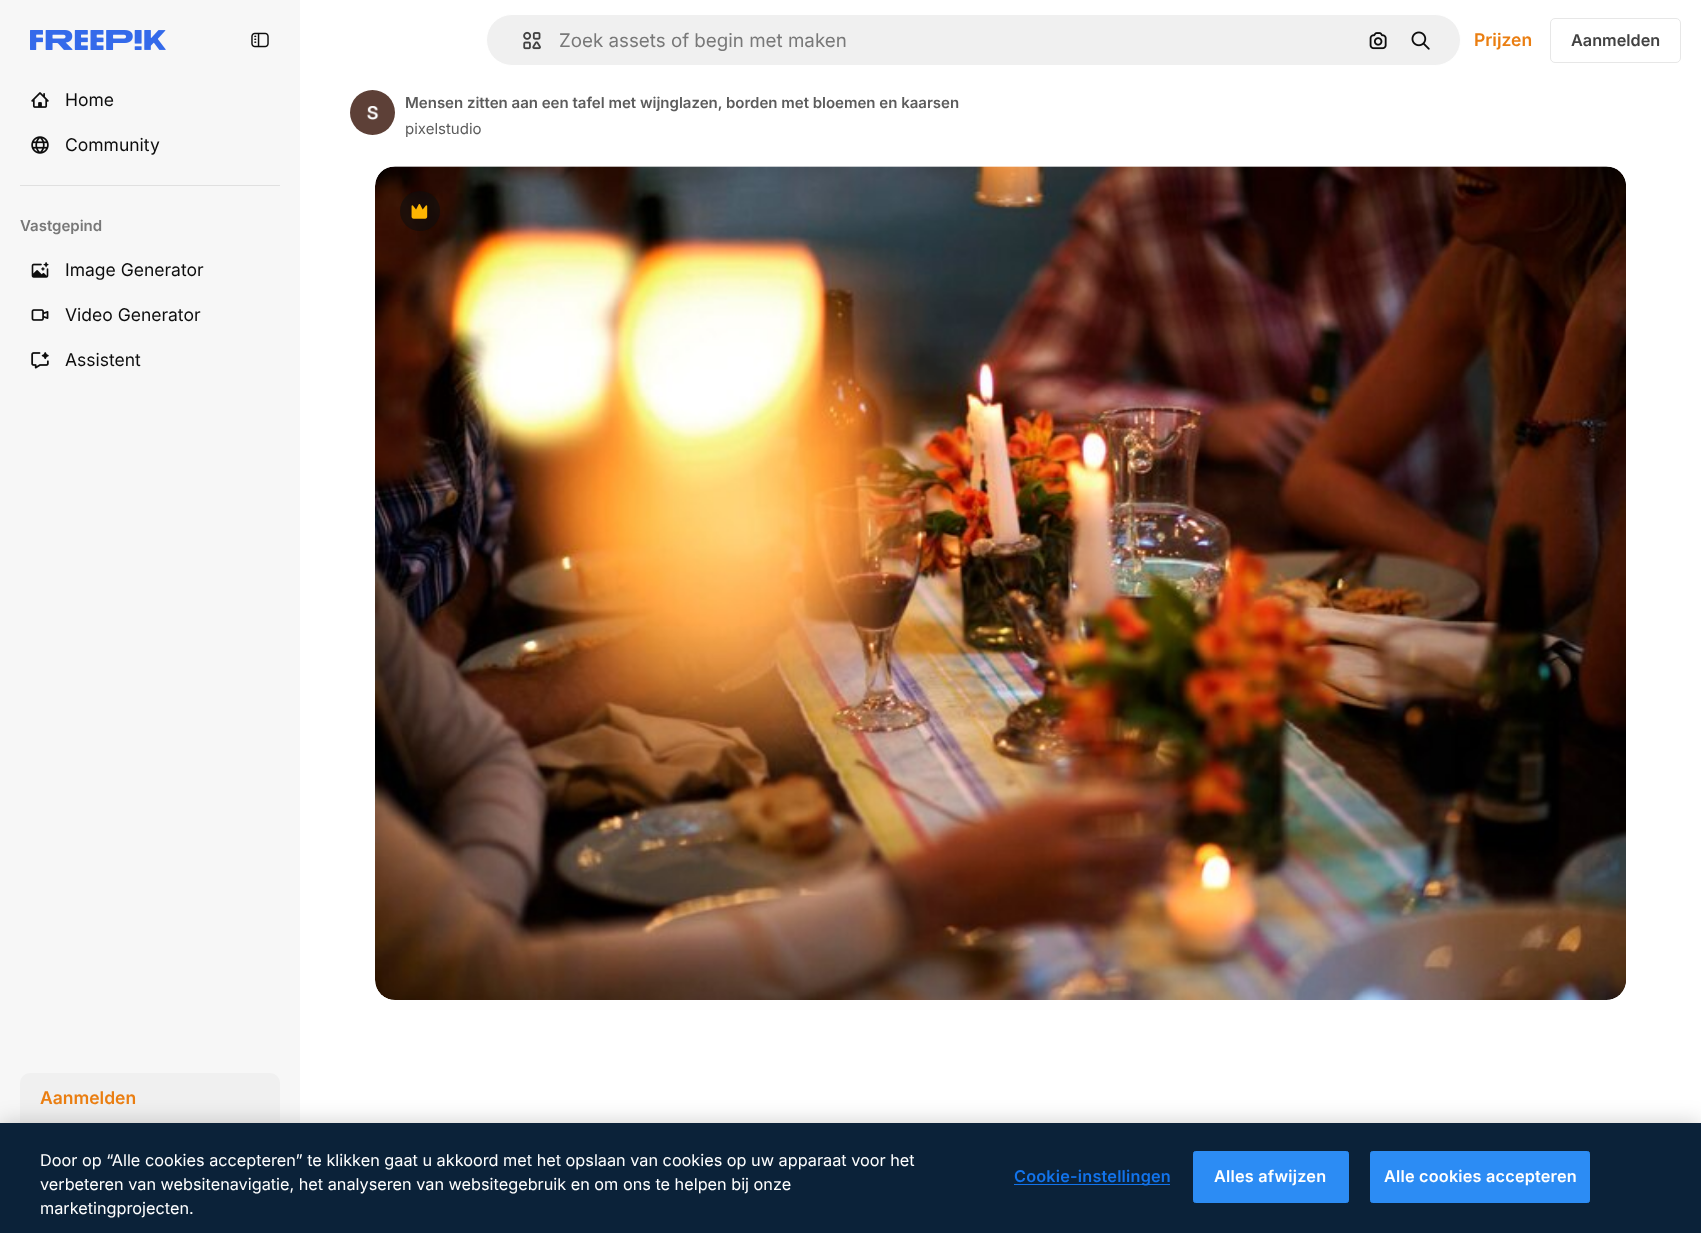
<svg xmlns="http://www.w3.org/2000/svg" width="1701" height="1233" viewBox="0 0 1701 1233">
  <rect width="100%" height="100%" fill="#fff"/>
  <path d="M0 0h300v1123H0z" fill="#f7f7f7"/>
  <image x="30" y="30" width="136" height="20" href="img/1.png"/>
  <image x="251" y="32" width="18" height="16" href="img/2.png"/>
  <image x="31" y="92" width="18" height="16" href="img/3.png"/>
  <image x="31" y="136" width="18" height="18" href="img/4.png"/>
  <path d="M20 185h260v1H20z" fill="#e0e0e0"/>
  <image x="31" y="262" width="18" height="16" href="img/5.png"/>
  <image x="31" y="309" width="18" height="12" href="img/6.png"/>
  <image x="31" y="352" width="18" height="17" href="img/7.png"/>
  <rect x="20" y="1073" width="260" height="81" rx="10" fill="#f0f0f0"/>
  <rect x="486.5" y="14.5" width="974" height="51" rx="25.5" fill="#f0f0f0" stroke="#fff"/>
  <image x="523" y="31" width="18" height="19" href="img/8.png"/>
  <image x="1369" y="32" width="18" height="18" href="img/9.png"/>
  <image x="1411" y="31" width="19" height="19" href="img/10.png"/>
  <rect x="1550.5" y="18.5" width="130" height="44" rx="4.5" fill="none" stroke="#e7e7e7"/>
  <image x="350" y="90" width="45" height="45" href="img/11.png"/>
  <image x="375" y="166" width="1251" height="834" href="img/12.png"/>
  <circle cx="420" cy="211" r="20" fill="#0d0d0d99"/>
  <image x="411" y="204" width="17" height="15" href="img/13.png"/>
  <path d="M0 1123h1701v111H0z" fill="#00000033" filter="blur(11px)"/>
  <path d="M0 1123h1701v110H0z" fill="#0b2239"/>
  <path d="M1014 1184h156v1H1014z" fill="#1273eb"/>
  <rect x="1193.5" y="1151.5" width="155" height="51" rx="2" fill="#2c8cf4" stroke="#2c8cf4"/>
  <rect x="1370.5" y="1151.5" width="219" height="51" rx="2" fill="#2c8cf4" stroke="#2c8cf4"/>
  <g font-family="Inter" font-size="17.5" fill="#0d0d0d">
    <text x="65" y="106">Home</text>
    <text x="65" y="151">Community</text>
  </g>
  <text x="20" y="231" font-family="Inter" font-size="15" font-weight="600" fill="#787878">Vastgepind</text>
  <g font-family="Inter" font-size="17.5" fill="#0d0d0d">
    <text x="65" y="276">Image Generator</text>
    <text x="65" y="321">Video Generator</text>
    <text x="65" y="366">Assistent</text>
  </g>
  <text x="40" y="1104" font-family="Inter" font-size="17.5" font-weight="600" fill="#ea7e11">Aanmelden</text>
  <text x="559" y="47" font-family="Inter" font-size="18.75" fill="#787878">Zoek assets of begin met maken</text>
  <text x="1474" y="46" font-family="Inter" font-size="17.5" font-weight="600" fill="#ea7e11">Prijzen</text>
  <text x="1571" y="46" font-family="Inter" font-size="16.25" font-weight="600" fill="#424242">Aanmelden</text>
  <text x="405" y="108" font-family="Inter" font-size="15" font-weight="600" fill="#5c5c5c">Mensen zitten aan een tafel met wijnglazen, borden met bloemen en kaarsen</text>
  <text x="405" y="134" font-family="Inter" font-size="15" fill="#5c5c5c">pixelstudio</text>
  <g font-family="Inter" font-size="16.25" fill="#fff">
    <text x="40" y="1166">Door op “Alle cookies accepteren” te klikken gaat u akkoord met het opslaan van cookies op uw apparaat voor het</text>
    <text x="40" y="1190">verbeteren van websitenavigatie, het analyseren van websitegebruik en om ons te helpen bij onze</text>
    <text x="40" y="1214">marketingprojecten.</text>
  </g>
  <text x="1014" y="1182" font-family="Inter" font-size="16.25" font-weight="600" letter-spacing="0.2" fill="#1273eb">Cookie-instellingen</text>
  <g font-family="Inter" font-size="16.25" font-weight="600" letter-spacing="0.2" fill="#fff">
    <text x="1214" y="1182">Alles afwijzen</text>
    <text x="1384" y="1182">Alle cookies accepteren</text>
  </g>
</svg>
